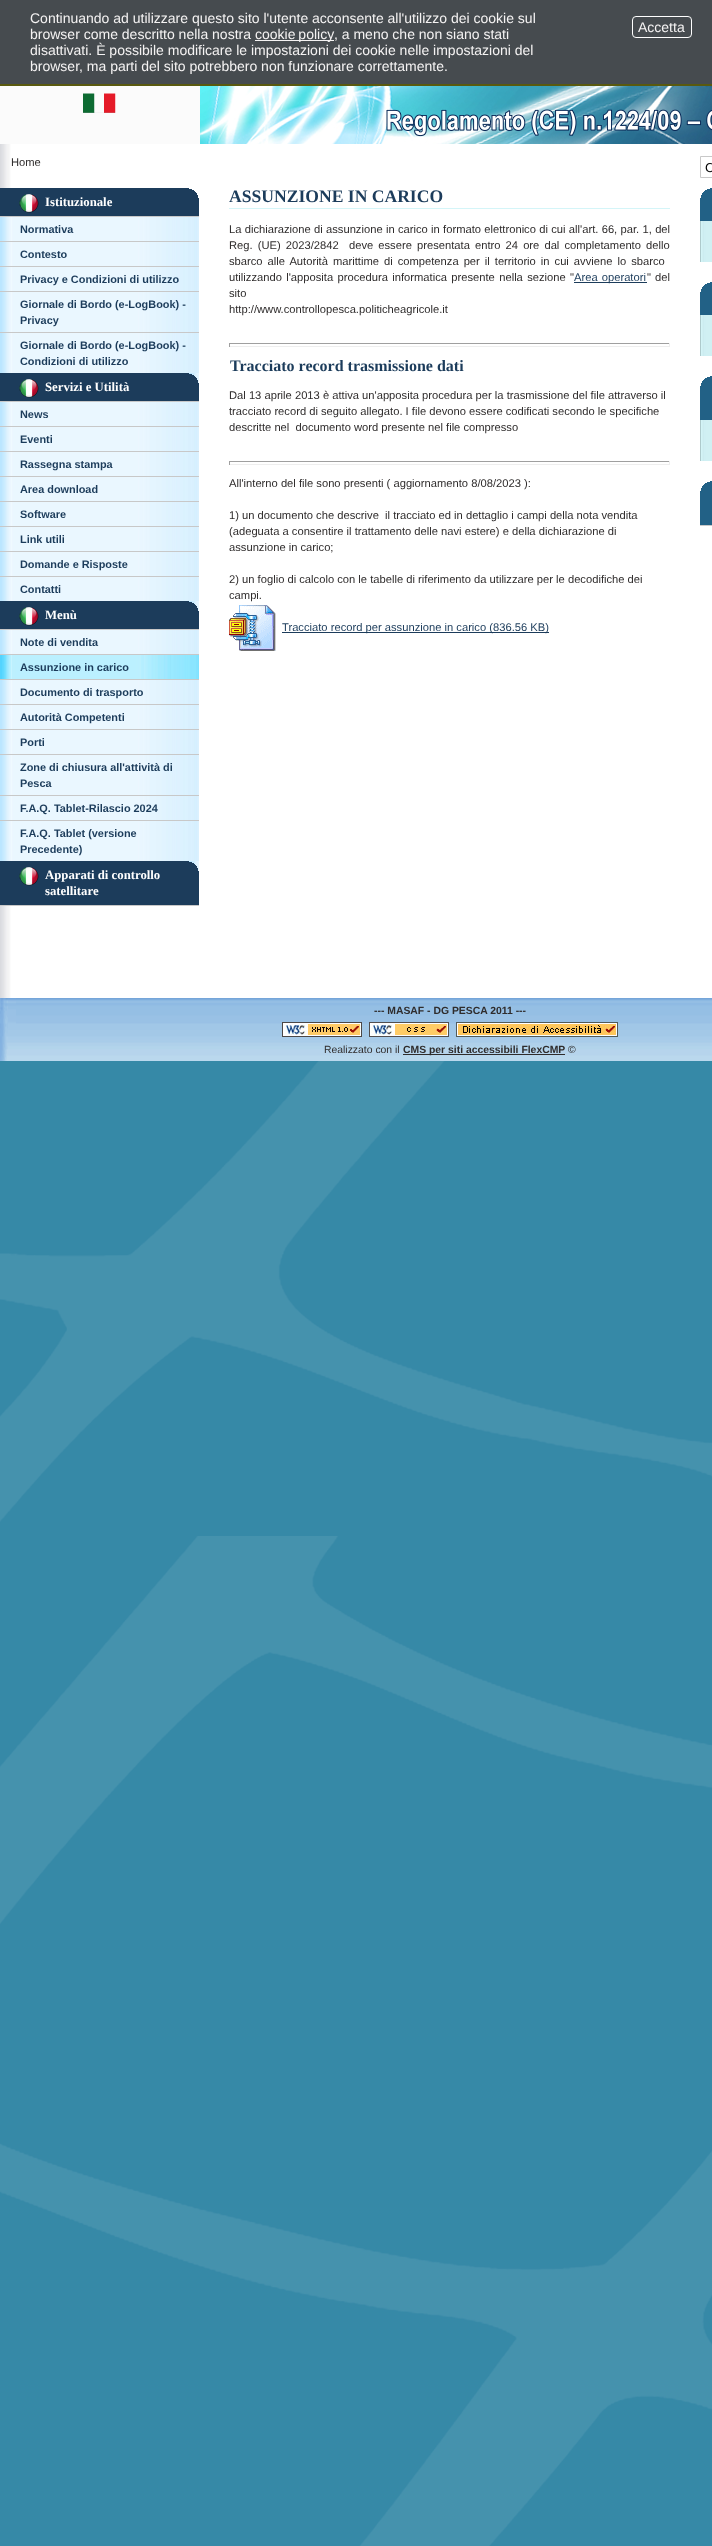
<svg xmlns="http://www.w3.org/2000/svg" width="712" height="2546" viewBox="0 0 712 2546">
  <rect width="100%" height="100%" fill="#3689a7"/>
  <image x="0" y="1061" width="712" height="1485" href="img/1.png"/>
  <path d="M0 0h712v84H0z" fill="#464b4f"/>
  <path d="M0 84h712v2H0z" fill="#59590f"/>
  <path d="M255 40h79v1H255z" fill="#f5f3f3"/>
  <rect x="632.5" y="16.5" width="59" height="21" rx="3.5" fill="none" stroke="#fff"/>
  <image x="0" y="144" width="712" height="854" href="img/2.png"/>
  <image x="200" y="86" width="512" height="58" href="img/3.png"/>
  <image x="0" y="86" width="200" height="58" href="img/4.png"/>
  <image x="386" y="109" width="326" height="28" href="img/5.png"/>
  <path d="M700.5 156.5h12v21H700.5z" fill="none" stroke="#c8c8c8"/>
  <path d="M0 905h199v1H0z" fill="#c8c8c8"/>
  <path d="M0 188h199v28H0z" fill="#1c3c5b"/>
  <image x="189" y="188" width="10" height="10" href="img/6.png"/>
  <image x="19" y="194" width="20" height="19" href="img/7.png"/>
  <image x="0" y="217" width="199" height="24" href="img/8.png"/>
  <path d="M0 216h199v1H0z" fill="#c8c8c8"/>
  <image x="0" y="242" width="199" height="24" href="img/8.png"/>
  <path d="M0 241h199v1H0z" fill="#c8c8c8"/>
  <image x="0" y="267" width="199" height="24" href="img/8.png"/>
  <path d="M0 266h199v1H0z" fill="#c8c8c8"/>
  <image x="0" y="292" width="199" height="40" href="img/9.png"/>
  <path d="M0 291h199v1H0z" fill="#c8c8c8"/>
  <image x="0" y="333" width="199" height="40" href="img/9.png"/>
  <path d="M0 332h199v1H0z" fill="#c8c8c8"/>
  <path d="M0 373h199v28H0z" fill="#1c3c5b"/>
  <image x="189" y="373" width="10" height="10" href="img/10.png"/>
  <image x="19" y="379" width="20" height="19" href="img/7.png"/>
  <image x="0" y="402" width="199" height="24" href="img/8.png"/>
  <path d="M0 401h199v1H0z" fill="#c8c8c8"/>
  <image x="0" y="427" width="199" height="24" href="img/8.png"/>
  <path d="M0 426h199v1H0z" fill="#c8c8c8"/>
  <image x="0" y="452" width="199" height="24" href="img/8.png"/>
  <path d="M0 451h199v1H0z" fill="#c8c8c8"/>
  <image x="0" y="477" width="199" height="24" href="img/8.png"/>
  <path d="M0 476h199v1H0z" fill="#c8c8c8"/>
  <image x="0" y="502" width="199" height="24" href="img/8.png"/>
  <path d="M0 501h199v1H0z" fill="#c8c8c8"/>
  <image x="0" y="527" width="199" height="24" href="img/8.png"/>
  <path d="M0 526h199v1H0z" fill="#c8c8c8"/>
  <image x="0" y="552" width="199" height="24" href="img/8.png"/>
  <path d="M0 551h199v1H0z" fill="#c8c8c8"/>
  <image x="0" y="577" width="199" height="24" href="img/8.png"/>
  <path d="M0 576h199v1H0z" fill="#c8c8c8"/>
  <path d="M0 601h199v28H0z" fill="#1c3c5b"/>
  <image x="189" y="601" width="10" height="10" href="img/10.png"/>
  <image x="19" y="607" width="20" height="19" href="img/7.png"/>
  <image x="0" y="630" width="199" height="24" href="img/8.png"/>
  <path d="M0 629h199v1H0z" fill="#c8c8c8"/>
  <image x="0" y="655" width="199" height="24" href="img/11.png"/>
  <path d="M0 654h199v1H0z" fill="#c8c8c8"/>
  <image x="0" y="680" width="199" height="24" href="img/8.png"/>
  <path d="M0 679h199v1H0z" fill="#c8c8c8"/>
  <image x="0" y="705" width="199" height="24" href="img/8.png"/>
  <path d="M0 704h199v1H0z" fill="#c8c8c8"/>
  <image x="0" y="730" width="199" height="24" href="img/8.png"/>
  <path d="M0 729h199v1H0z" fill="#c8c8c8"/>
  <image x="0" y="755" width="199" height="40" href="img/9.png"/>
  <path d="M0 754h199v1H0z" fill="#c8c8c8"/>
  <image x="0" y="796" width="199" height="24" href="img/8.png"/>
  <path d="M0 795h199v1H0z" fill="#c8c8c8"/>
  <image x="0" y="821" width="199" height="40" href="img/9.png"/>
  <path d="M0 820h199v1H0z" fill="#c8c8c8"/>
  <path d="M0 861h199v44H0z" fill="#1c3c5b"/>
  <image x="189" y="861" width="10" height="10" href="img/10.png"/>
  <image x="19" y="867" width="20" height="19" href="img/7.png"/>
  <path d="M229 208h441v1H229z" fill="#d4f5f8"/>
  <path d="M574 282h73v1H574z" fill="#1c3c5b"/>
  <path d="M229 343h441v1H229z" fill="#9f9f9f"/>
  <path d="M669 343h1v4H669z" fill="#eee"/>
  <path d="M229 346h441v1H229z" fill="#eee"/>
  <path d="M229 343h1v4H229z" fill="#9f9f9f"/>
  <path d="M229 461h441v1H229z" fill="#9f9f9f"/>
  <path d="M669 461h1v4H669z" fill="#eee"/>
  <path d="M229 464h441v1H229z" fill="#eee"/>
  <path d="M229 461h1v4H229z" fill="#9f9f9f"/>
  <image x="229" y="605" width="47" height="46" href="img/12.png"/>
  <path d="M282 632h267v1H282z" fill="#1c3c5b"/>
  <image x="700" y="221" width="12" height="41" href="img/13.png"/>
  <path d="M700 188h12v33H700z" fill="#226186"/>
  <image x="700" y="188" width="10" height="10" href="img/14.png"/>
  <image x="700" y="315" width="12" height="41" href="img/13.png"/>
  <path d="M700 282h12v33H700z" fill="#226186"/>
  <image x="700" y="282" width="10" height="10" href="img/14.png"/>
  <image x="700" y="420" width="12" height="41" href="img/13.png"/>
  <path d="M700 376h12v44H700z" fill="#226186"/>
  <image x="700" y="376" width="10" height="10" href="img/14.png"/>
  <path d="M700 525h12v1H700z" fill="#c8c8c8"/>
  <path d="M700 481h12v44H700z" fill="#226186"/>
  <image x="700" y="481" width="10" height="10" href="img/14.png"/>
  <image x="0" y="998" width="712" height="63" href="img/15.png"/>
  <image x="282" y="1022" width="80" height="15" href="img/16.png"/>
  <image x="369" y="1022" width="80" height="15" href="img/17.png"/>
  <image x="456" y="1022" width="162" height="15" href="img/18.png"/>
  <path d="M403 1054h162v1H403z" fill="#2f2c2c"/>
  <g font-family="Liberation Sans" font-size="14" fill="#f5f3f3">
    <text x="30" y="23">Continuando ad utilizzare questo sito l'utente acconsente all'utilizzo dei cookie sul</text>
    <text x="30" y="39">browser come descritto nella nostra</text>
    <text x="255" y="39" word-spacing="-1">cookie policy</text>
    <text x="334" y="39">, a meno che non siano stati</text>
    <text x="30" y="55">disattivati. È possibile modificare le impostazioni dei cookie nelle impostazioni del</text>
    <text x="30" y="71">browser, ma parti del sito potrebbero non funzionare correttamente.</text>
    <text x="638" y="32">Accetta</text>
  </g>
  <text x="11" y="166" font-family="Liberation Sans" font-size="11.2" fill="#2f2c2c">Home</text>
  <text x="705" y="172" font-family="Liberation Sans" font-size="13" fill="#000">C</text>
  <text x="45" y="206" font-family="Liberation Serif" font-size="12.75" font-weight="bold" fill="#fff">Istituzionale</text>
  <g font-family="Liberation Sans" font-size="10.9" font-weight="bold" fill="#1c3c5b">
    <text x="20" y="233">Normativa</text>
    <text x="20" y="258">Contesto</text>
    <text x="20" y="283">Privacy e Condizioni di utilizzo</text>
    <text x="20" y="308">Giornale di Bordo (e-LogBook) -</text>
    <text x="20" y="324">Privacy</text>
    <text x="20" y="349">Giornale di Bordo (e-LogBook) -</text>
    <text x="20" y="365">Condizioni di utilizzo</text>
  </g>
  <text x="45" y="391" font-family="Liberation Serif" font-size="12.75" font-weight="bold" fill="#fff">Servizi e Utilità</text>
  <g font-family="Liberation Sans" font-size="10.9" font-weight="bold" fill="#1c3c5b">
    <text x="20" y="418">News</text>
    <text x="20" y="443">Eventi</text>
    <text x="20" y="468">Rassegna stampa</text>
    <text x="20" y="493">Area download</text>
    <text x="20" y="518">Software</text>
    <text x="20" y="543">Link utili</text>
    <text x="20" y="568">Domande e Risposte</text>
    <text x="20" y="593">Contatti</text>
  </g>
  <text x="45" y="619" font-family="Liberation Serif" font-size="12.75" font-weight="bold" fill="#fff">Menù</text>
  <g font-family="Liberation Sans" font-size="10.9" font-weight="bold" fill="#1c3c5b">
    <text x="20" y="646">Note di vendita</text>
    <text x="20" y="671">Assunzione in carico</text>
    <text x="20" y="696">Documento di trasporto</text>
    <text x="20" y="721">Autorità Competenti</text>
    <text x="20" y="746">Porti</text>
    <text x="20" y="771">Zone di chiusura all'attività di</text>
    <text x="20" y="787">Pesca</text>
    <text x="20" y="812">F.A.Q. Tablet-Rilascio 2024</text>
    <text x="20" y="837">F.A.Q. Tablet (versione</text>
    <text x="20" y="853">Precedente)</text>
  </g>
  <g font-family="Liberation Serif" font-size="12.75" font-weight="bold" fill="#fff">
    <text x="45" y="879">Apparati di controllo</text>
    <text x="45" y="895">satellitare</text>
  </g>
  <text x="229" y="202" font-family="Liberation Serif" font-size="17.6" font-weight="bold" fill="#1c3c5b">ASSUNZIONE IN CARICO</text>
  <g font-family="Liberation Sans" font-size="11.2" fill="#2f2c2c">
    <text x="229" y="233" word-spacing="0.2">La dichiarazione di assunzione in carico in formato elettronico di cui all'art. 66, par. 1, del</text>
    <text x="229" y="249" word-spacing="2" xml:space="preserve">Reg. (UE) 2023/2842  deve essere presentata entro 24 ore dal completamento dello</text>
    <text x="229" y="265" word-spacing="1.9">sbarco alle Autorità marittime di competenza per il territorio in cui avviene lo sbarco</text>
    <text x="229" y="281" word-spacing="1.25">utilizzando l'apposita procedura informatica presente nella sezione "</text>
  </g>
  <text x="574" y="281" word-spacing="1" font-family="Liberation Sans" font-size="11.2" fill="#1c3c5b">Area operatori</text>
  <g font-family="Liberation Sans" font-size="11.2" fill="#2f2c2c">
    <text x="647" y="281" word-spacing="1">" del</text>
    <text x="229" y="297">sito</text>
    <text x="229" y="313">http://www.controllopesca.politicheagricole.it</text>
  </g>
  <text x="230" y="371" font-family="Liberation Serif" font-size="16" font-weight="bold" fill="#1c3c5b">Tracciato record trasmissione dati</text>
  <g font-family="Liberation Sans" font-size="11.2" fill="#2f2c2c">
    <text x="229" y="399">Dal 13 aprile 2013 è attiva un'apposita procedura per la trasmissione del file attraverso il</text>
    <text x="229" y="415">tracciato record di seguito allegato. I file devono essere codificati secondo le specifiche</text>
    <text x="229" y="431" xml:space="preserve">descritte nel  documento word presente nel file compresso</text>
    <text x="229" y="487">All'interno del file sono presenti ( aggiornamento 8/08/2023 ):</text>
    <text x="229" y="519" xml:space="preserve">1) un documento che descrive  il tracciato ed in dettaglio i campi della nota vendita</text>
    <text x="229" y="535">(adeguata a consentire il trattamento delle navi estere) e della dichiarazione di</text>
    <text x="229" y="551">assunzione in carico;</text>
    <text x="229" y="583">2) un foglio di calcolo con le tabelle di riferimento da utilizzare per le decodifiche dei</text>
    <text x="229" y="599">campi.</text>
  </g>
  <text x="282" y="631" font-family="Liberation Sans" font-size="11.2" fill="#1c3c5b">Tracciato record per assunzione in carico (836.56 KB)</text>
  <text x="374" y="1014" font-family="Liberation Sans" font-size="10.4" font-weight="bold" fill="#2f2c2c">--- MASAF - DG PESCA 2011 ---</text>
  <text x="324" y="1053" font-family="Liberation Sans" font-size="10.4" fill="#2f2c2c">Realizzato con il</text>
  <text x="403" y="1053" font-family="Liberation Sans" font-size="10.4" font-weight="bold" fill="#2f2c2c">CMS per siti accessibili FlexCMP</text>
  <text x="568" y="1053" font-family="Liberation Sans" font-size="10.4" fill="#2f2c2c">©</text>
</svg>
